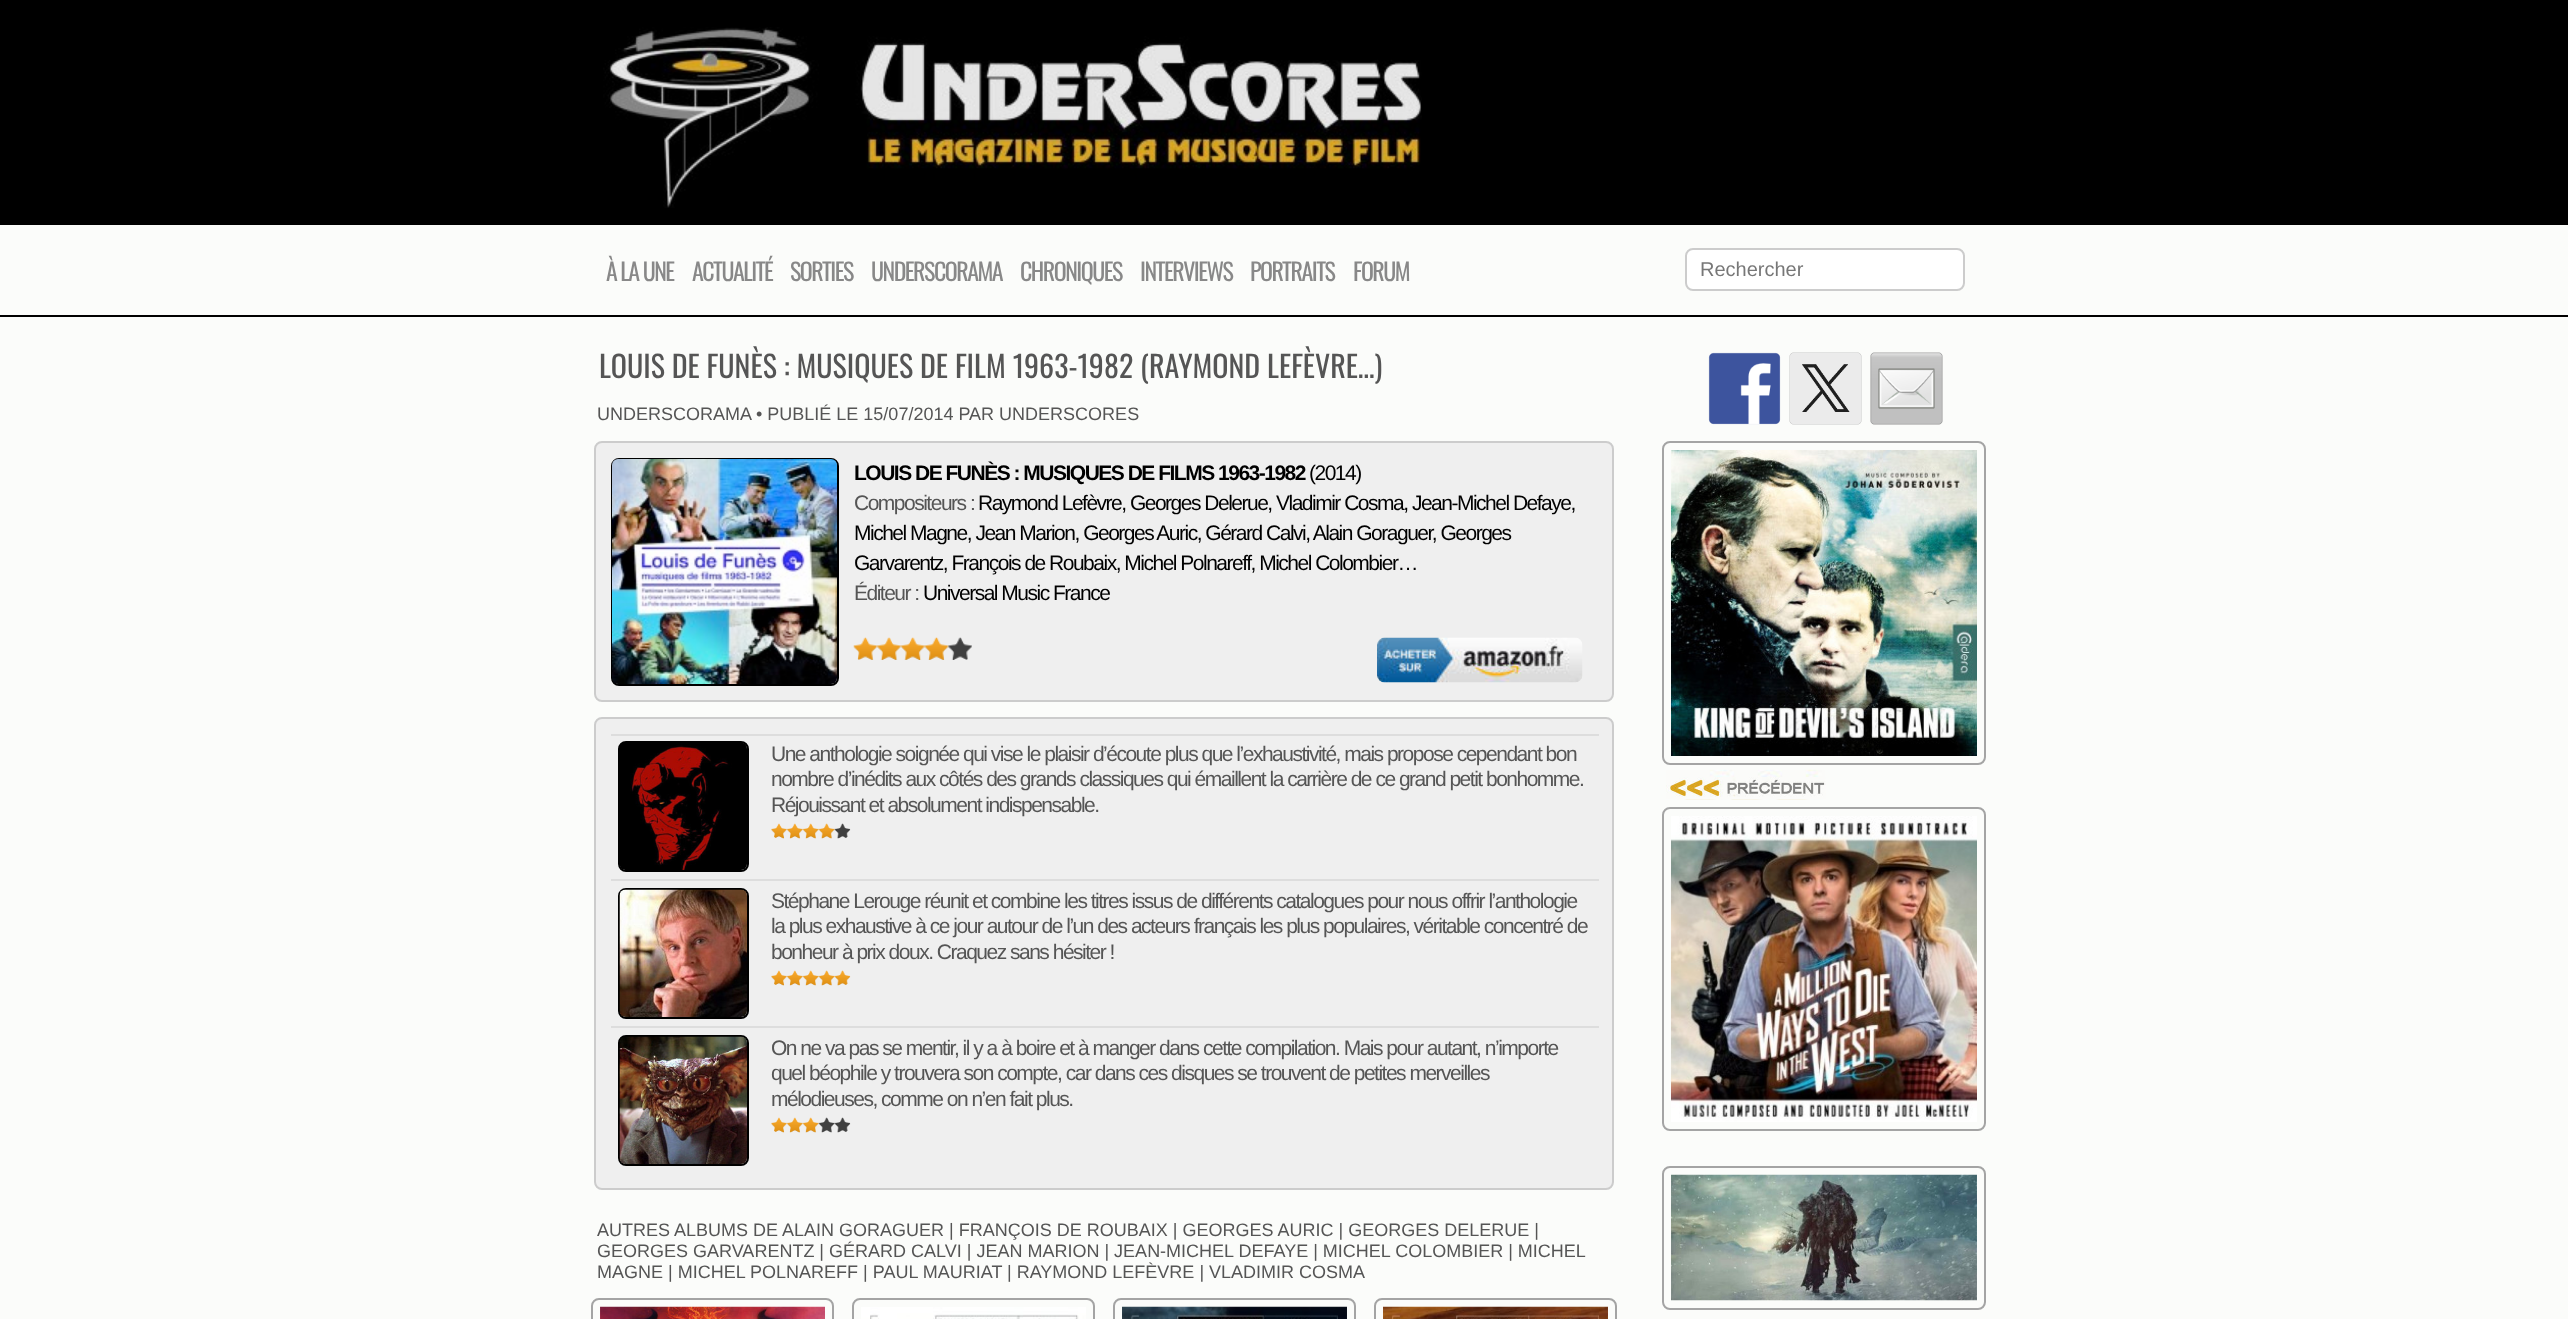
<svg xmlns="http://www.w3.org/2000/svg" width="2568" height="1319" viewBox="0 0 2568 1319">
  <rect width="100%" height="100%" fill="#fbfcfa"/>
  <path d="M0 0h2568v225H0z" fill="#000"/>
  <image x="603" y="27" width="819" height="181" href="img/1.png"/>
  <rect x="1686" y="249" width="278" height="41" rx="7" fill="#fff" stroke="#ccc" stroke-width="2"/>
  <path d="M0 315h2568v2H0z" fill="#000"/>
  <rect x="595" y="442" width="1018" height="259" rx="7" fill="#efefef" stroke="#ccc" stroke-width="2"/>
  <rect x="612" y="459" width="226" height="226" rx="7" fill="none" stroke="#000" stroke-width="2"/>
  <image x="612" y="459" width="225" height="225" href="img/2.png"/>
  <image x="853" y="637" width="119" height="23" href="img/3.png"/>
  <image x="1377" y="637" width="206" height="46" href="img/4.png"/>
  <rect x="595" y="718" width="1018" height="471" rx="7" fill="#efefef" stroke="#ccc" stroke-width="2"/>
  <rect x="619" y="742" width="129" height="129" rx="7" fill="none" stroke="#000" stroke-width="2"/>
  <image x="620" y="743" width="127" height="127" href="img/5.png"/>
  <path d="M611 734h988v2H611z" fill="#ddd"/>
  <image x="771" y="823" width="80" height="16" href="img/6.png"/>
  <rect x="619" y="889" width="129" height="129" rx="7" fill="none" stroke="#000" stroke-width="2"/>
  <image x="619" y="889" width="128" height="128" href="img/7.png"/>
  <path d="M611 879h988v2H611z" fill="#ddd"/>
  <image x="771" y="970" width="80" height="16" href="img/8.png"/>
  <rect x="619" y="1036" width="129" height="129" rx="7" fill="none" stroke="#000" stroke-width="2"/>
  <image x="619" y="1036" width="128" height="128" href="img/9.png"/>
  <path d="M611 1026h988v2H611z" fill="#ddd"/>
  <image x="771" y="1117" width="80" height="16" href="img/10.png"/>
  <rect x="592" y="1299" width="241" height="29" rx="7" fill="none" stroke="#a4a4a4" stroke-width="2"/>
  <image x="600" y="1306" width="225" height="13" href="img/11.png"/>
  <rect x="853" y="1299" width="241" height="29" rx="7" fill="none" stroke="#a4a4a4" stroke-width="2"/>
  <image x="861" y="1307" width="225" height="12" href="img/12.png"/>
  <rect x="1114" y="1299" width="241" height="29" rx="7" fill="none" stroke="#a4a4a4" stroke-width="2"/>
  <image x="1122" y="1306" width="225" height="13" href="img/13.png"/>
  <rect x="1375" y="1299" width="241" height="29" rx="7" fill="none" stroke="#a4a4a4" stroke-width="2"/>
  <image x="1383" y="1306" width="225" height="13" href="img/14.png"/>
  <image x="1708" y="352" width="73" height="73" href="img/15.png"/>
  <image x="1789" y="352" width="73" height="73" href="img/16.png"/>
  <image x="1870" y="352" width="73" height="73" href="img/17.png"/>
  <rect x="1663" y="442" width="322" height="322" rx="7" fill="none" stroke="#a4a4a4" stroke-width="2"/>
  <image x="1671" y="450" width="306" height="306" href="img/18.png"/>
  <image x="1666" y="769" width="160" height="31" href="img/19.png"/>
  <path d="M1686 799h118v1H1686z" fill="#fbfbfb40"/>
  <rect x="1663" y="808" width="322" height="322" rx="7" fill="none" stroke="#a4a4a4" stroke-width="2"/>
  <image x="1671" y="816" width="306" height="306" href="img/20.png"/>
  <rect x="1663" y="1167" width="322" height="142" rx="7" fill="none" stroke="#a4a4a4" stroke-width="2"/>
  <image x="1671" y="1174" width="306" height="127" href="img/21.png"/>
  <g font-family="Oswald" font-size="24" letter-spacing="-1.5" fill="#888">
    <text x="606" y="281">À LA UNE</text>
    <text x="692" y="281">ACTUALITÉ</text>
    <text x="790" y="281">SORTIES</text>
    <text x="871" y="281">UNDERSCORAMA</text>
    <text x="1020" y="281">CHRONIQUES</text>
    <text x="1140" y="281">INTERVIEWS</text>
    <text x="1250" y="281">PORTRAITS</text>
    <text x="1353" y="281">FORUM</text>
  </g>
  <text x="1700" y="276" font-family="Liberation Sans" font-size="20" fill="#777">Rechercher</text>
  <text x="599" y="378" font-family="Oswald" font-size="30" fill="#555">LOUIS DE FUNÈS : MUSIQUES DE FILM 1963-1982 (RAYMOND LEFÈVRE…)</text>
  <g font-family="Liberation Sans" font-size="18" fill="#555">
    <text x="597" y="420">UNDERSCORAMA</text>
    <text x="756" y="420">• PUBLIÉ LE 15/07/2014 PAR UNDERSCORES</text>
  </g>
  <text x="854" y="480" font-family="Liberation Sans" font-size="21" font-weight="bold" letter-spacing="-1.5" fill="#000">LOUIS DE FUNÈS : MUSIQUES DE FILMS 1963-1982</text>
  <text x="1309" y="480" font-family="Liberation Sans" font-size="21" letter-spacing="-1.5" fill="#000">(2014)</text>
  <text x="854" y="510" font-family="Liberation Sans" font-size="21" letter-spacing="-1.5" fill="#555">Compositeurs :</text>
  <g font-family="Liberation Sans" font-size="21" letter-spacing="-1.5" fill="#000">
    <text x="978" y="510">Raymond Lefèvre, Georges Delerue, Vladimir Cosma, Jean-Michel Defaye,</text>
    <text x="854" y="540">Michel Magne, Jean Marion, Georges Auric, Gérard Calvi, Alain Goraguer, Georges</text>
    <text x="854" y="570">Garvarentz, François de Roubaix, Michel Polnareff, Michel Colombier…</text>
  </g>
  <text x="854" y="600" font-family="Liberation Sans" font-size="21" letter-spacing="-1.5" fill="#555">Éditeur :</text>
  <text x="923" y="600" font-family="Liberation Sans" font-size="21" letter-spacing="-1.5" fill="#000">Universal Music France</text>
  <g font-family="Liberation Sans" font-size="21" letter-spacing="-1.5" fill="#555">
    <text x="771" y="761">Une anthologie soignée qui vise le plaisir d’écoute plus que l’exhaustivité, mais propose cependant bon</text>
    <text x="771" y="786">nombre d’inédits aux côtés des grands classiques qui émaillent la carrière de ce grand petit bonhomme.</text>
    <text x="771" y="812">Réjouissant et absolument indispensable.</text>
    <text x="771" y="908">Stéphane Lerouge réunit et combine les titres issus de différents catalogues pour nous offrir l’anthologie</text>
    <text x="771" y="933">la plus exhaustive à ce jour autour de l’un des acteurs français les plus populaires, véritable concentré de</text>
    <text x="771" y="959">bonheur à prix doux. Craquez sans hésiter !</text>
    <text x="771" y="1055">On ne va pas se mentir, il y a à boire et à manger dans cette compilation. Mais pour autant, n’importe</text>
    <text x="771" y="1080">quel béophile y trouvera son compte, car dans ces disques se trouvent de petites merveilles</text>
    <text x="771" y="1106">mélodieuses, comme on n’en fait plus.</text>
  </g>
  <g font-family="Liberation Sans" font-size="18" fill="#555">
    <text x="597" y="1236">AUTRES ALBUMS DE</text>
    <text x="782" y="1236">ALAIN GORAGUER | FRANÇOIS DE ROUBAIX | GEORGES AURIC | GEORGES DELERUE |</text>
    <text x="597" y="1257">GEORGES GARVARENTZ | GÉRARD CALVI | JEAN MARION | JEAN-MICHEL DEFAYE | MICHEL COLOMBIER | MICHEL</text>
    <text x="597" y="1278">MAGNE | MICHEL POLNAREFF | PAUL MAURIAT</text>
    <text x="1007" y="1278">| RAYMOND LEFÈVRE | VLADIMIR COSMA</text>
  </g>
</svg>
